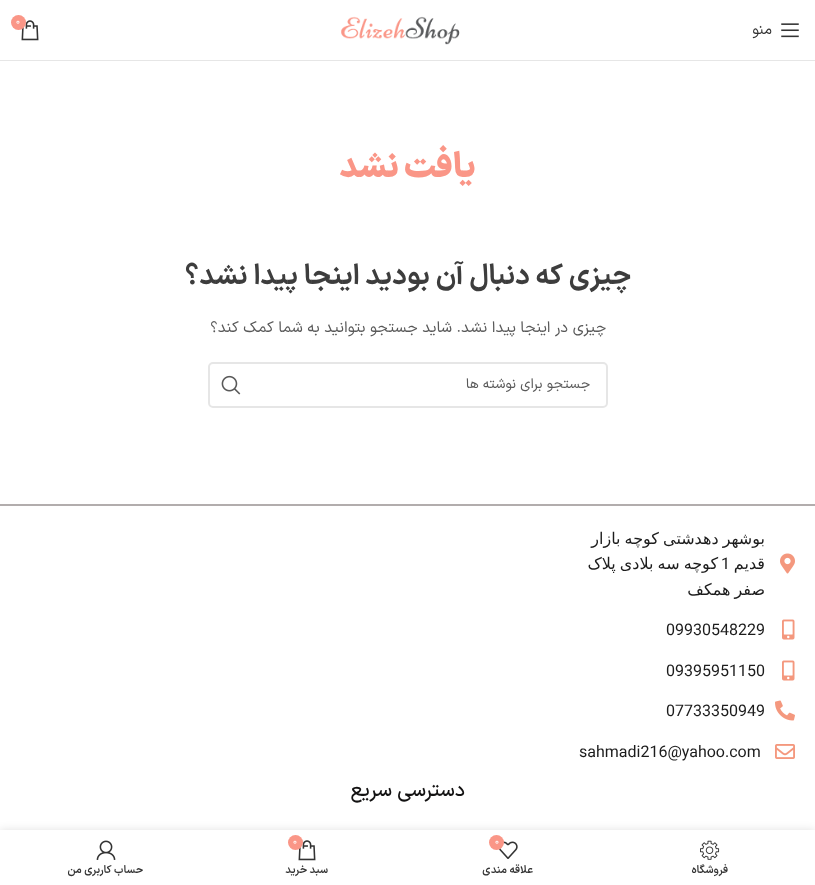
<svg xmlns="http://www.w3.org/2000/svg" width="815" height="885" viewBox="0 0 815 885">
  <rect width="100%" height="100%" fill="#fff"/>
  <path d="M0 60h815v1H0z" fill="#e6e6e6"/>
  <image x="341" y="16" width="119" height="29" href="img/1.png"/>
  <image x="21" y="20" width="18" height="21" href="img/2.png"/>
  <circle cx="18.5" cy="22.5" r="7.5" fill="#fa9687"/>
  <image x="781" y="23" width="18" height="15" href="img/3.png"/>
  <rect x="209" y="363" width="398" height="44" rx="4" fill="none" stroke="#e6e6e6" stroke-width="2"/>
  <image x="221" y="375" width="20" height="20" href="img/4.png"/>
  <path d="M0 504h815v2H0z" fill="#b2adad"/>
  <image x="780" y="553" width="15" height="21" href="img/5.png"/>
  <image x="782" y="619" width="13" height="21" href="img/6.png"/>
  <image x="782" y="660" width="13" height="21" href="img/6.png"/>
  <image x="775" y="700" width="20" height="21" href="img/7.png"/>
  <image x="775" y="744" width="20" height="15" href="img/8.png"/>
  <path d="M0 830h815v55H0z" fill="#0000001f" filter="blur(4.5px)"/>
  <path d="M0 830h815v55H0z" fill="#fff"/>
  <image x="700" y="840" width="20" height="20" href="img/9.png"/>
  <image x="498" y="841" width="20" height="18" href="img/10.png"/>
  <circle cx="496.5" cy="842.5" r="7.5" fill="#fa9687"/>
  <image x="298" y="840" width="18" height="21" href="img/2.png"/>
  <circle cx="295.5" cy="842.5" r="7.5" fill="#fa9687"/>
  <image x="96" y="840" width="20" height="20" href="img/11.png"/>
  <text x="16" y="24" font-family="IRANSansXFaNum" font-size="9" fill="#fff">0</text>
  <text x="772" y="34" font-family="IRANSansXFaNum" font-size="15" direction="rtl" fill="#333">منو</text>
  <text x="476" y="177" font-family="IRANSansXFaNum" font-size="34" font-weight="900" direction="rtl" fill="#fa9687">یافت نشد</text>
  <text x="631" y="284" font-family="IRANSansXFaNum" font-size="28" font-weight="bold" direction="rtl" fill="#3d3d3d">چیزی که دنبال آن بودید اینجا پیدا نشد؟</text>
  <text x="606" y="332" font-family="IRANSansXFaNum" font-size="15.4" direction="rtl" fill="#595959">چیزی در اینجا پیدا نشد. شاید جستجو بتوانید به شما کمک کند؟</text>
  <text x="590" y="388" font-family="IRANSansXFaNum" font-size="14" direction="rtl" fill="#595959">جستجو برای نوشته ها</text>
  <g font-family="DejaVu Sans" font-size="16" direction="rtl" fill="#1c1c1c">
    <text x="765" y="544" word-spacing="-1">بوشهر دهدشتی کوچه بازار</text>
    <text x="765" y="569">قدیم</text>
  </g>
  <text x="721" y="569" font-family="Roboto" font-size="16" fill="#1c1c1c">1</text>
  <g font-family="DejaVu Sans" font-size="16" direction="rtl" fill="#1c1c1c">
    <text x="718" y="569" word-spacing="-1">کوچه سه بلادی پلاک</text>
    <text x="765" y="595" word-spacing="-1">صفر همکف</text>
  </g>
  <g font-family="Roboto" font-size="16" fill="#1c1c1c">
    <text x="666" y="635">09930548229</text>
    <text x="666" y="676">09395951150</text>
    <text x="666" y="716">07733350949</text>
    <text x="579" y="757">sahmadi216@yahoo.com</text>
  </g>
  <text x="465" y="796" font-family="IRANSansXFaNum" font-size="20" font-weight="500" direction="rtl" fill="#131212">دسترسی سریع</text>
  <text x="728" y="873" font-family="IRANSansXFaNum" font-size="11" font-weight="600" direction="rtl" fill="#333">فروشگاه</text>
  <text x="495" y="844" font-family="IRANSansXFaNum" font-size="9" fill="#fff">0</text>
  <text x="533" y="873" font-family="IRANSansXFaNum" font-size="11" font-weight="600" direction="rtl" fill="#333">علاقه مندی</text>
  <text x="293" y="844" font-family="IRANSansXFaNum" font-size="9" fill="#fff">0</text>
  <g font-family="IRANSansXFaNum" font-size="11" font-weight="600" direction="rtl" fill="#333">
    <text x="328" y="873">سبد خرید</text>
    <text x="143" y="873">حساب کاربری من</text>
  </g>
</svg>
